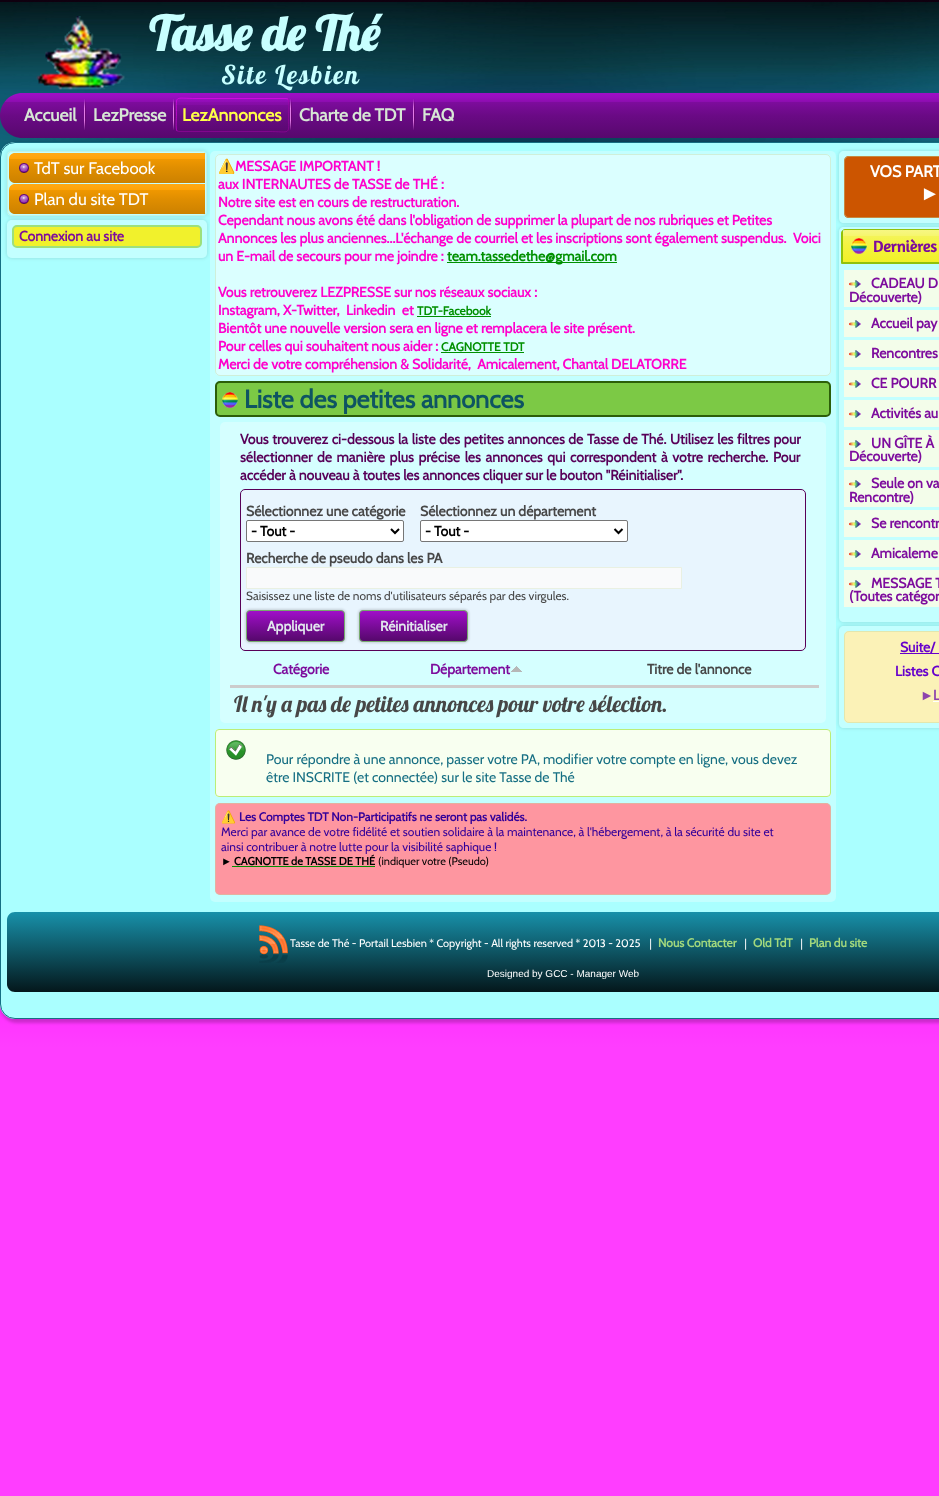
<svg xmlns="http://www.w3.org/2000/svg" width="939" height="1496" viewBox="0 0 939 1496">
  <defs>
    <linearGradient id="g1" gradientUnits="userSpaceOnUse" x1="469" y1="0" x2="470" y2="1496"><stop offset="0" stop-color="#0f000f"/><stop offset="0.56" stop-color="#f0f"/><stop offset="0.7" stop-color="#ff3dff"/></linearGradient>
    <linearGradient id="g2" gradientUnits="userSpaceOnUse" x1="570" y1="93" x2="570" y2="138"><stop offset="0" stop-color="#9f0fc7"/><stop offset="0.1" stop-color="#980ebe"/><stop offset="0.2" stop-color="#8c0daf"/><stop offset="0.2" stop-color="#7d0c9d"/><stop offset="0.5" stop-color="#6a0a85"/><stop offset="1" stop-color="#57086d"/></linearGradient>
    <linearGradient id="g3" gradientUnits="userSpaceOnUse" x1="233" y1="98" x2="233" y2="132"><stop offset="0" stop-color="#9f0fc7" stop-opacity="0.5"/><stop offset="0.1" stop-color="#980ebe" stop-opacity="0.5"/><stop offset="0.2" stop-color="#8c0daf" stop-opacity="0.5"/><stop offset="0.2" stop-color="#7d0c9d" stop-opacity="0.5"/><stop offset="0.5" stop-color="#6a0a85" stop-opacity="0.5"/><stop offset="1" stop-color="#57086d" stop-opacity="0.5"/></linearGradient>
    <clipPath id="clip1"><path d="M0 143H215V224H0ZM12 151H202C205 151 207 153 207 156V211C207 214 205 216 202 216H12C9 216 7 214 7 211V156C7 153 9 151 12 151Z" clip-rule="evenodd"/></clipPath>
    <linearGradient id="g4" gradientUnits="userSpaceOnUse" x1="107" y1="153" x2="107" y2="183"><stop offset="0" stop-color="#ffa914"/><stop offset="0.1" stop-color="#ffa70f"/><stop offset="0.2" stop-color="#ffa305"/><stop offset="0.2" stop-color="#ffa200"/><stop offset="0.2" stop-color="#f09800"/><stop offset="0.5" stop-color="#e08e00"/><stop offset="1" stop-color="#cc8100"/></linearGradient>
    <clipPath id="clip2"><path d="M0 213H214V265H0ZM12 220H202C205 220 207 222 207 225V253C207 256 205 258 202 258H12C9 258 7 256 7 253V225C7 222 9 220 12 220Z" clip-rule="evenodd"/></clipPath>
    <linearGradient id="g5" gradientUnits="userSpaceOnUse" x1="107" y1="184" x2="107" y2="214"><stop offset="0" stop-color="#ffa914"/><stop offset="0.1" stop-color="#ffa70f"/><stop offset="0.2" stop-color="#ffa305"/><stop offset="0.2" stop-color="#ffa200"/><stop offset="0.2" stop-color="#f09800"/><stop offset="0.5" stop-color="#e08e00"/><stop offset="1" stop-color="#cc8100"/></linearGradient>
    <linearGradient id="g6" gradientUnits="userSpaceOnUse" x1="296" y1="610" x2="296" y2="642"><stop offset="0" stop-color="#a30fcc"/><stop offset="1" stop-color="#530868"/></linearGradient>
    <linearGradient id="g7" gradientUnits="userSpaceOnUse" x1="414" y1="610" x2="414" y2="642"><stop offset="0" stop-color="#a30fcc"/><stop offset="1" stop-color="#530868"/></linearGradient>
    <clipPath id="clip3"><path d="M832 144H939V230H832ZM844 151H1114C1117 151 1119 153 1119 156V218C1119 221 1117 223 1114 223H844C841 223 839 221 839 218V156C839 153 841 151 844 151Z" clip-rule="evenodd"/></clipPath>
    <clipPath id="clip4"><path d="M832 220H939V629H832ZM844 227H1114C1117 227 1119 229 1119 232V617C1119 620 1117 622 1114 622H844C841 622 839 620 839 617V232C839 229 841 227 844 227Z" clip-rule="evenodd"/></clipPath>
    <linearGradient id="g8" gradientUnits="userSpaceOnUse" x1="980" y1="230" x2="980" y2="262"><stop offset="0" stop-color="#f7f782"/><stop offset="0.1" stop-color="#f6f679"/><stop offset="0.2" stop-color="#f6f66a"/><stop offset="0.2" stop-color="#f4f457"/><stop offset="0.5" stop-color="#f3f33f"/><stop offset="1" stop-color="#f1f127"/></linearGradient>
    <clipPath id="clip5"><path d="M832 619H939V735H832ZM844 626H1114C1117 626 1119 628 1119 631V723C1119 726 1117 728 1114 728H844C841 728 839 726 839 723V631C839 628 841 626 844 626Z" clip-rule="evenodd"/></clipPath>
    <linearGradient id="g9" gradientUnits="userSpaceOnUse" x1="563" y1="912" x2="563" y2="992"><stop offset="0" stop-color="#1891aa"/><stop offset="1" stop-color="#04171b"/></linearGradient>
  </defs>
  <rect width="100%" height="100%" fill="#fff"/>
  <path d="M0 0h939v1496H0z" fill="url(#g1)"/>
  <image x="0" y="2" width="939" height="155" href="img/1.png"/>
  <image x="36" y="16" width="89" height="74" href="img/2.png"/>
  <rect y="142" width="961" height="881" rx="17" fill="#00000033" filter="blur(1.5px)"/>
  <path d="M22.5 93H939V138H22.5C10 138 0 128 0 115.5C0 103 10 93 22.5 93Z" fill="url(#g2)"/>
  <image x="84" y="99" width="2" height="31" href="img/3.png"/>
  <image x="173" y="99" width="2" height="31" href="img/3.png"/>
  <rect x="176" y="98" width="113" height="34" rx="3" fill="url(#g3)"/>
  <path d="M288 99C289.5 101 288.5 112.5 288.5 115C288.5 136 292 131.5 268 131.5H179L177 131" fill="none" stroke="#aa03aa80"/>
  <path d="M177 131C175.5 129 176.5 117.5 176.5 115C176.5 94 173 98.5 197 98.5H286L288 99" fill="none" stroke="#ff05ff80"/>
  <image x="290" y="99" width="2" height="31" href="img/3.png"/>
  <image x="413" y="99" width="2" height="31" href="img/3.png"/>
  <path d="M15 142H939V1019H15C6.5 1019 0 1012.5 0 1004V157C0 148.5 6.5 142 15 142Z" fill="#aff"/>
  <rect x="0.5" y="142.5" width="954" height="876" rx="14.5" fill="none" stroke="#166f83"/>
  <g clip-path="url(#clip1)">
    <rect x="5" y="149" width="204" height="69" rx="7" fill="#0000000f" filter="blur(1.5px)"/>
  </g>
  <rect x="7" y="151" width="200" height="65" rx="5" fill="#ffffff4d"/>
  <rect x="7.5" y="151.5" width="199" height="64" rx="4.5" fill="none" stroke="#bed69f4d"/>
  <path d="M15 153H205V183H15C11.5 183 9 180.5 9 177V159C9 155.5 11.5 153 15 153Z" fill="url(#g4)"/>
  <image x="19" y="163" width="10" height="10" href="img/4.png"/>
  <g clip-path="url(#clip2)">
    <rect x="6" y="219" width="202" height="40" rx="6" fill="#00000017" filter="blur(1.5px)"/>
  </g>
  <path d="M15 184H205V214H15C11.5 214 9 211.5 9 208V190C9 186.5 11.5 184 15 184Z" fill="url(#g5)"/>
  <image x="19" y="194" width="10" height="10" href="img/4.png"/>
  <rect x="7" y="220" width="200" height="38" rx="5" fill="#ffffff4d"/>
  <rect x="13" y="226" width="188" height="21" rx="4" fill="#f1f12c" stroke="#9de07b" stroke-width="2"/>
  <rect x="210" y="151" width="626" height="751" rx="5" fill="#c3ffff"/>
  <rect x="215" y="154" width="616" height="222" rx="5" fill="#dbffff"/>
  <rect x="215.5" y="154.5" width="615" height="221" rx="4.5" fill="none" stroke="#bed69f66"/>
  <path d="M447 262h170v1H447z" fill="#009000"/>
  <path d="M417 316h74v1H417z" fill="#009000"/>
  <path d="M441 352h83v1H441z" fill="#009000"/>
  <rect x="216" y="382" width="614" height="34" rx="4" fill="#7cc945" stroke="#2c5e09" stroke-width="2"/>
  <image x="222" y="392" width="16" height="16" href="img/5.png"/>
  <rect x="220" y="422" width="606" height="301" rx="5" fill="#d5ffff"/>
  <rect x="240.5" y="489.5" width="565" height="161" rx="4.5" fill="#e8f5fe" stroke="#580058"/>
  <rect x="246.5" y="520.5" width="157" height="21" rx="1.5" fill="#fff" stroke="#767676"/>
  <path d="M391 529L395 533L399 529" fill="none" stroke="#000" stroke-width="2"/>
  <rect x="420.5" y="520.5" width="207" height="21" rx="1.5" fill="#fff" stroke="#767676"/>
  <path d="M614.5 529L618.5 533L622.5 529" fill="none" stroke="#000" stroke-width="2"/>
  <path d="M246.5 567.5h435v21H246.5z" fill="#f9fafb" stroke="#e9f0e2"/>
  <rect x="245" y="609" width="101" height="34" rx="5" fill="#00000026" filter="blur(1px)"/>
  <rect x="246.5" y="610.5" width="98" height="31" rx="3.5" fill="url(#g6)" stroke="#76ab6d"/>
  <rect x="358" y="609" width="111" height="34" rx="5" fill="#00000026" filter="blur(1px)"/>
  <rect x="359.5" y="610.5" width="108" height="31" rx="3.5" fill="url(#g7)" stroke="#76ab6d"/>
  <image x="511" y="666" width="11" height="6" href="img/6.png"/>
  <path d="M230 685h589v3H230z" fill="#ccc"/>
  <rect x="215" y="729" width="616" height="68" rx="4" fill="#f8fff0"/>
  <image x="226" y="740" width="20" height="20" href="img/7.png"/>
  <rect x="215.5" y="729.5" width="615" height="67" rx="3.5" fill="none" stroke="#be7"/>
  <rect x="215" y="803" width="616" height="92" rx="5" fill="#fe96a0"/>
  <rect x="215.5" y="803.5" width="615" height="91" rx="4.5" fill="none" stroke="#bed69f66"/>
  <path d="M232 866h143v1H232z" fill="#009000"/>
  <g clip-path="url(#clip3)">
    <rect x="838" y="150" width="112" height="74" rx="6" fill="#00000017" filter="blur(1.5px)"/>
  </g>
  <path d="M844 151H939V223H844C841 223 839 221 839 218V156C839 153 841 151 844 151Z" fill="#ffffff4d"/>
  <path d="M849 156H939V218H849C846 218 844 216 844 213V161C844 158 846 156 849 156Z" fill="#c50"/>
  <rect x="844.5" y="156.5" width="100" height="61" rx="4.5" fill="none" stroke="#bed69f66"/>
  <g clip-path="url(#clip4)">
    <rect x="838" y="226" width="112" height="397" rx="6" fill="#00000017" filter="blur(1.5px)"/>
  </g>
  <path d="M844 227H939V622H844C841 622 839 620 839 617V232C839 229 841 227 844 227Z" fill="#ffffff4d"/>
  <path d="M845 230H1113C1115 230 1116 231 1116 233V262H843V233C843 231 844 230 845 230Z" fill="url(#g8)"/>
  <path d="M845 229.5H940C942 229.5 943.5 231 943.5 233V263.5H841.5V233C841.5 231 843 229.5 845 229.5Z" fill="none" stroke="#91c20a"/>
  <path d="M841 262h98v1H841z" fill="#91c20a"/>
  <path d="M842 231h1v33H842z" fill="#91c20a"/>
  <image x="851" y="238" width="16" height="16" href="img/8.png"/>
  <path d="M844 270h95v37H844z" fill="#f3fdea"/>
  <image x="849" y="280" width="12" height="8" href="img/9.png"/>
  <path d="M844 310h95v27H844z" fill="#f3fdea"/>
  <image x="849" y="320" width="12" height="8" href="img/9.png"/>
  <path d="M844 340h95v27H844z" fill="#f3fdea"/>
  <image x="849" y="350" width="12" height="8" href="img/9.png"/>
  <path d="M844 370h95v27H844z" fill="#f3fdea"/>
  <image x="849" y="380" width="12" height="8" href="img/9.png"/>
  <path d="M844 400h95v27H844z" fill="#f3fdea"/>
  <image x="849" y="410" width="12" height="8" href="img/9.png"/>
  <path d="M844 430h95v37H844z" fill="#f3fdea"/>
  <image x="849" y="440" width="12" height="8" href="img/9.png"/>
  <path d="M844 470h95v37H844z" fill="#f3fdea"/>
  <image x="849" y="480" width="12" height="8" href="img/9.png"/>
  <path d="M844 510h95v27H844z" fill="#f3fdea"/>
  <image x="849" y="520" width="12" height="8" href="img/9.png"/>
  <path d="M844 540h95v27H844z" fill="#f3fdea"/>
  <image x="849" y="550" width="12" height="8" href="img/9.png"/>
  <path d="M844 570h95v37H844z" fill="#f3fdea"/>
  <image x="849" y="580" width="12" height="8" href="img/9.png"/>
  <g clip-path="url(#clip5)">
    <rect x="838" y="625" width="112" height="104" rx="6" fill="#00000017" filter="blur(1.5px)"/>
  </g>
  <path d="M844 626H939V728H844C841 728 839 726 839 723V631C839 628 841 626 844 626Z" fill="#ffffff4d"/>
  <path d="M849 631H939V723H849C846 723 844 721 844 718V636C844 633 846 631 849 631Z" fill="#fbf2b7"/>
  <rect x="844.5" y="631.5" width="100" height="91" rx="4.5" fill="none" stroke="#bed69f66"/>
  <path d="M900 653h39v1H900z" fill="#60c"/>
  <path d="M933 701h6v1H933z" fill="#fff"/>
  <path d="M15 912H939V992H15C10.5 992 7 988.5 7 984V920C7 915.5 10.5 912 15 912Z" fill="url(#g9)"/>
  <image x="259" y="925" width="29" height="38" href="img/10.png"/>
  <text x="149" y="51" font-family="Lobster" font-size="48" font-weight="bold" fill="#c7ffff">Tasse de Thé</text>
  <text x="221" y="84" font-family="Lobster" font-size="26" letter-spacing="2" fill="#c7ffff">Site Lesbien</text>
  <g font-family="Cabin" font-size="17.5" font-weight="bold" fill="#d7e7d5">
    <text x="24" y="121">Accueil</text>
    <text x="93" y="121">LezPresse</text>
  </g>
  <text x="182" y="121" font-family="Cabin" font-size="17.5" font-weight="bold" fill="#ffff47">LezAnnonces</text>
  <g font-family="Cabin" font-size="17.5" font-weight="bold" fill="#d7e7d5">
    <text x="299" y="121">Charte de TDT</text>
    <text x="422" y="121">FAQ</text>
  </g>
  <g font-family="Cabin" font-size="16.75" fill="#fff">
    <text x="34" y="174">TdT sur Facebook</text>
    <text x="34" y="205">Plan du site TDT</text>
  </g>
  <text x="19" y="241" font-family="Cabin" font-size="14" font-weight="bold" fill="#7d0c9d">Connexion au site</text>
  <text x="218" y="171" font-family="Noto Color Emoji" font-size="14" font-weight="bold" fill="#384b20">⚠️</text>
  <g font-family="Cabin" font-size="14" font-weight="bold" fill="#f0c">
    <text x="235" y="171">MESSAGE IMPORTANT !</text>
    <text x="218" y="189">aux INTERNAUTES de TASSE de THÉ :</text>
    <text x="218" y="207">Notre site est en cours de restructuration.</text>
    <text x="218" y="225">Cependant nous avons été dans l'obligation de supprimer la plupart de nos rubriques et Petites</text>
    <text x="218" y="243">Annonces les plus anciennes...L'échange de courriel et les inscriptions sont également suspendus.</text>
    <text x="793" y="243">Voici</text>
    <text x="218" y="261">un E-mail de secours pour me joindre :</text>
  </g>
  <text x="447" y="261" font-family="Cabin" font-size="14" font-weight="bold" fill="#009000">team.tassedethe@gmail.com</text>
  <g font-family="Cabin" font-size="14" font-weight="bold" fill="#f0c">
    <text x="218" y="297">Vous retrouverez LEZPRESSE sur nos réseaux sociaux :</text>
    <text x="218" y="315" xml:space="preserve">Instagram, X-Twitter,  Linkedin  et</text>
  </g>
  <text x="417" y="315" font-family="Cabin" font-size="12" font-weight="bold" fill="#009000">TDT-Facebook</text>
  <g font-family="Cabin" font-size="14" font-weight="bold" fill="#f0c">
    <text x="218" y="333">Bientôt une nouvelle version sera en ligne et remplacera le site présent.</text>
    <text x="218" y="351">Pour celles qui souhaitent nous aider :</text>
  </g>
  <text x="441" y="351" font-family="Cabin" font-size="12" font-weight="bold" fill="#009000">CAGNOTTE TDT</text>
  <text x="218" y="369" font-family="Cabin" font-size="14" font-weight="bold" fill="#f0c" xml:space="preserve">Merci de votre compréhension &amp; Solidarité,  Amicalement, Chantal DELATORRE</text>
  <text x="244" y="408" font-family="Cabin" font-size="25.25" font-weight="bold" fill="#0e5462">Liste des petites annonces</text>
  <g font-family="Cabin" font-size="14" font-weight="bold" fill="#580058">
    <text x="240" y="444" word-spacing="0.5">Vous trouverez ci-dessous la liste des petites annonces de Tasse de Thé. Utilisez les filtres pour</text>
    <text x="240" y="462" word-spacing="1.5">sélectionner de manière plus précise les annonces qui correspondent à votre recherche. Pour</text>
    <text x="240" y="480">accéder à nouveau à toutes les annonces cliquer sur le bouton "Réinitialiser".</text>
  </g>
  <text x="246" y="516" font-family="Cabin" font-size="14" font-weight="bold" fill="#474747">Sélectionnez une catégorie</text>
  <text x="251" y="536" font-family="Cabin" font-size="14" font-weight="bold" fill="#000">- Tout -</text>
  <text x="420" y="516" font-family="Cabin" font-size="14" font-weight="bold" fill="#474747">Sélectionnez un département</text>
  <text x="425" y="536" font-family="Cabin" font-size="14" font-weight="bold" fill="#000">- Tout -</text>
  <text x="246" y="563" font-family="Cabin" font-size="14" font-weight="bold" fill="#474747">Recherche de pseudo dans les PA</text>
  <text x="246" y="600" font-family="Cabin" font-size="11.9" fill="#474747">Saisissez une liste de noms d'utilisateurs séparés par des virgules.</text>
  <g font-family="Cabin" font-size="14" font-weight="bold" fill="#e2e8ee">
    <text x="267" y="631">Appliquer</text>
    <text x="380" y="631">Réinitialiser</text>
  </g>
  <g font-family="Cabin" font-size="14" font-weight="bold" fill="#7d0c9d">
    <text x="273" y="674">Catégorie</text>
    <text x="430" y="674">Département</text>
  </g>
  <text x="647" y="674" font-family="Cabin" font-size="14" font-weight="bold" fill="#474747">Titre de l'annonce</text>
  <text x="234" y="712" font-family="Lobster" font-size="22.4" fill="#474747">Il n'y a pas de petites annonces pour votre sélection.</text>
  <g font-family="Cabin" font-size="14" fill="#166f83">
    <text x="266" y="764">Pour répondre à une annonce, passer votre PA, modifier votre compte en ligne, vous devez</text>
    <text x="266" y="782">être INSCRITE (et connectée) sur le site Tasse de Thé</text>
  </g>
  <text x="221" y="821" font-family="Noto Color Emoji" font-size="12" font-weight="bold" fill="#309">⚠️</text>
  <text x="239" y="821" font-family="Cabin" font-size="12" font-weight="bold" fill="#309">Les Comptes TDT Non-Participatifs ne seront pas validés.</text>
  <g font-family="Cabin" font-size="12" fill="#309">
    <text x="221" y="836">Merci par avance de votre fidélité et soutien solidaire à la maintenance, à l'hébergement, à la sécurité du site et</text>
    <text x="221" y="851">ainsi contribuer à notre lutte pour la visibilité saphique !</text>
  </g>
  <text x="221" y="865" font-family="Liberation Sans" font-size="11" fill="#000">►</text>
  <text x="234" y="865" font-family="Cabin" font-size="11" font-weight="bold" fill="#000">CAGNOTTE de TASSE DE THÉ</text>
  <text x="378" y="865" font-family="Cabin" font-size="11" fill="#000">(indiquer votre (Pseudo)</text>
  <text x="870" y="177" font-family="Cabin" font-size="16" font-weight="bold" fill="#fff">VOS PART</text>
  <text x="920" y="200" font-family="Liberation Sans" font-size="20" font-weight="bold" fill="#fff">►</text>
  <text x="873" y="252" font-family="Amaranth" font-size="16" font-weight="bold" fill="#7d0c9d">Dernières</text>
  <g font-family="Cabin" font-size="14" font-weight="bold" fill="#7d0c9d">
    <text x="871" y="288">CADEAU D</text>
    <text x="849" y="302">Découverte)</text>
    <text x="871" y="328">Accueil pay</text>
    <text x="871" y="358">Rencontres</text>
    <text x="871" y="388">CE POURR</text>
    <text x="871" y="418">Activités au</text>
    <text x="871" y="448">UN GÎTE À</text>
    <text x="849" y="461">Découverte)</text>
    <text x="871" y="488">Seule on va</text>
    <text x="849" y="502">Rencontre)</text>
    <text x="871" y="528">Se rencontr</text>
    <text x="871" y="558">Amicaleme</text>
    <text x="871" y="588">MESSAGE T</text>
    <text x="849" y="601">(Toutes catégor</text>
  </g>
  <g font-family="Cabin" font-size="14" font-weight="bold" fill="#60c">
    <text x="900" y="652">Suite/</text>
    <text x="895" y="676">Listes C</text>
  </g>
  <text x="920" y="700" font-family="Liberation Sans" font-size="14" fill="#8e44ad">►</text>
  <text x="933" y="700" font-family="Cabin" font-size="14" font-weight="bold" fill="#8e44ad">L</text>
  <text x="290" y="947" font-family="Cabin" font-size="11" fill="#fff">Tasse de Thé - Portail Lesbien * Copyright - All rights reserved * 2013 - 2025</text>
  <text x="646" y="947" font-family="DejaVu Sans" font-size="11" fill="#fff">❘</text>
  <text x="658" y="947" font-family="Cabin" font-size="12" font-weight="bold" fill="#a3d97d">Nous Contacter</text>
  <text x="741" y="947" font-family="DejaVu Sans" font-size="11" fill="#fff">❘</text>
  <text x="753" y="947" font-family="Cabin" font-size="12" font-weight="bold" fill="#a3d97d">Old TdT</text>
  <text x="797" y="947" font-family="DejaVu Sans" font-size="11" fill="#fff">❘</text>
  <text x="809" y="947" font-family="Cabin" font-size="12" font-weight="bold" fill="#a3d97d">Plan du site</text>
  <text x="487" y="977" font-family="Liberation Sans" font-size="10" fill="#fff">Designed by GCC - Manager Web</text>
</svg>
